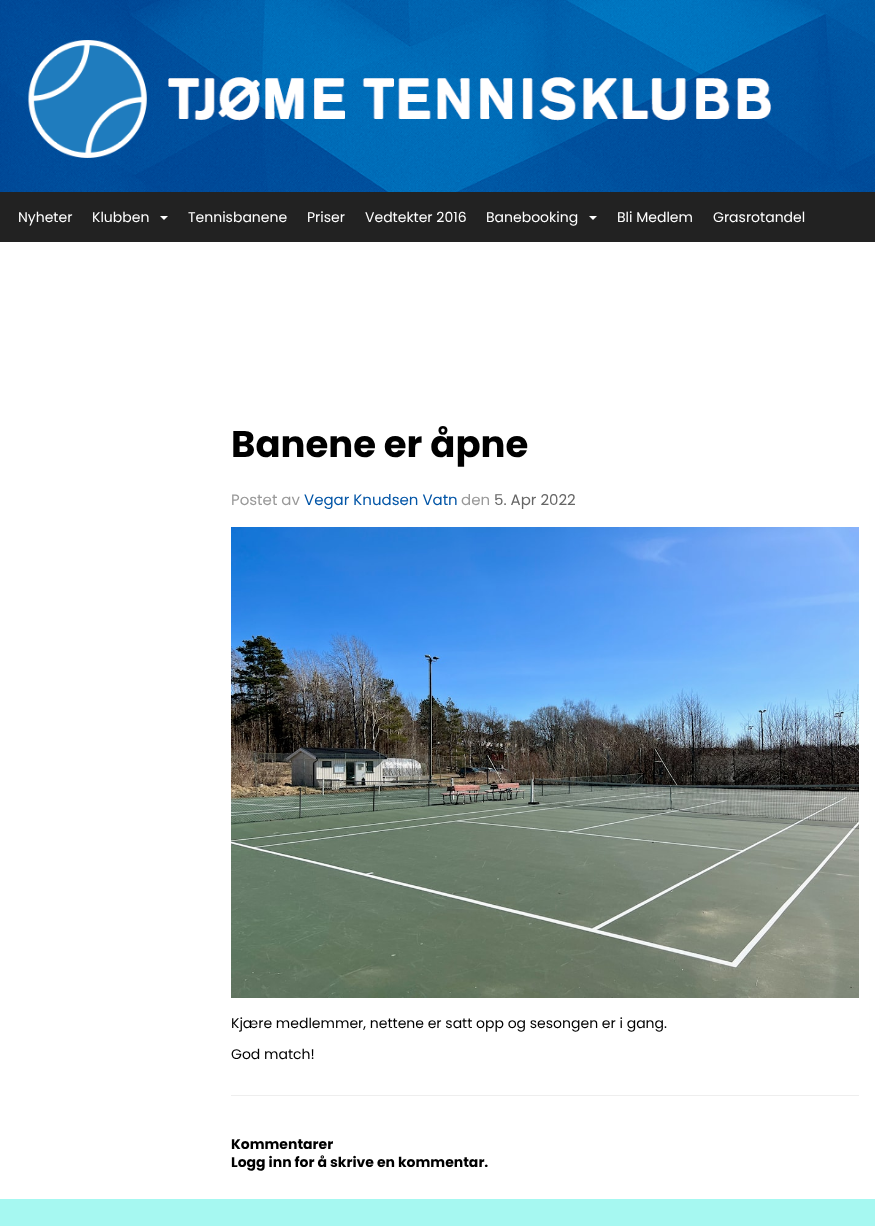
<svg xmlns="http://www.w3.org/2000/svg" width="875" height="1226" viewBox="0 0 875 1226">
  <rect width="100%" height="100%" fill="#a6f8f1"/>
  <image x="0" y="0" width="875" height="192" href="img/1.png"/>
  <path d="M0 192h875v50H0z" fill="#222"/>
  <path d="M160 216H168L164 220Z" fill="#fff"/>
  <path d="M589 216H597L593 220Z" fill="#fff"/>
  <path d="M0 242h875v957H0z" fill="#fff"/>
  <image x="231" y="527" width="628" height="471" href="img/2.png"/>
  <path d="M231 1095h628v1H231z" fill="#eee"/>
  <g font-family="Poppins" font-size="14" fill="#fff">
    <text x="18" y="222">Nyheter</text>
    <text x="92" y="222">Klubben</text>
    <text x="188" y="222">Tennisbanene</text>
    <text x="307" y="222">Priser</text>
    <text x="365" y="222">Vedtekter 2016</text>
    <text x="486" y="222">Banebooking</text>
    <text x="617" y="222">Bli Medlem</text>
    <text x="713" y="222">Grasrotandel</text>
  </g>
  <text x="231" y="457" font-family="Poppins" font-size="37" font-weight="bold" fill="#000">Banene er åpne</text>
  <text x="231" y="505" font-family="Poppins" font-size="15" fill="#999">Postet av</text>
  <text x="304" y="505" font-family="Poppins" font-size="15" fill="#0054a6">Vegar Knudsen Vatn</text>
  <text x="461" y="505" font-family="Poppins" font-size="15" fill="#999">den</text>
  <text x="494" y="505" font-family="Poppins" font-size="15" fill="#666">5. Apr 2022</text>
  <g font-family="Poppins" font-size="14" fill="#000">
    <text x="231" y="1028">Kjære medlemmer, nettene er satt opp og sesongen er i gang.</text>
    <text x="231" y="1059">God match!</text>
  </g>
  <g font-family="Poppins" font-size="14" font-weight="bold" fill="#000">
    <text x="231" y="1149">Kommentarer</text>
    <text x="231" y="1167">Logg inn for å skrive en kommentar.</text>
  </g>
</svg>
